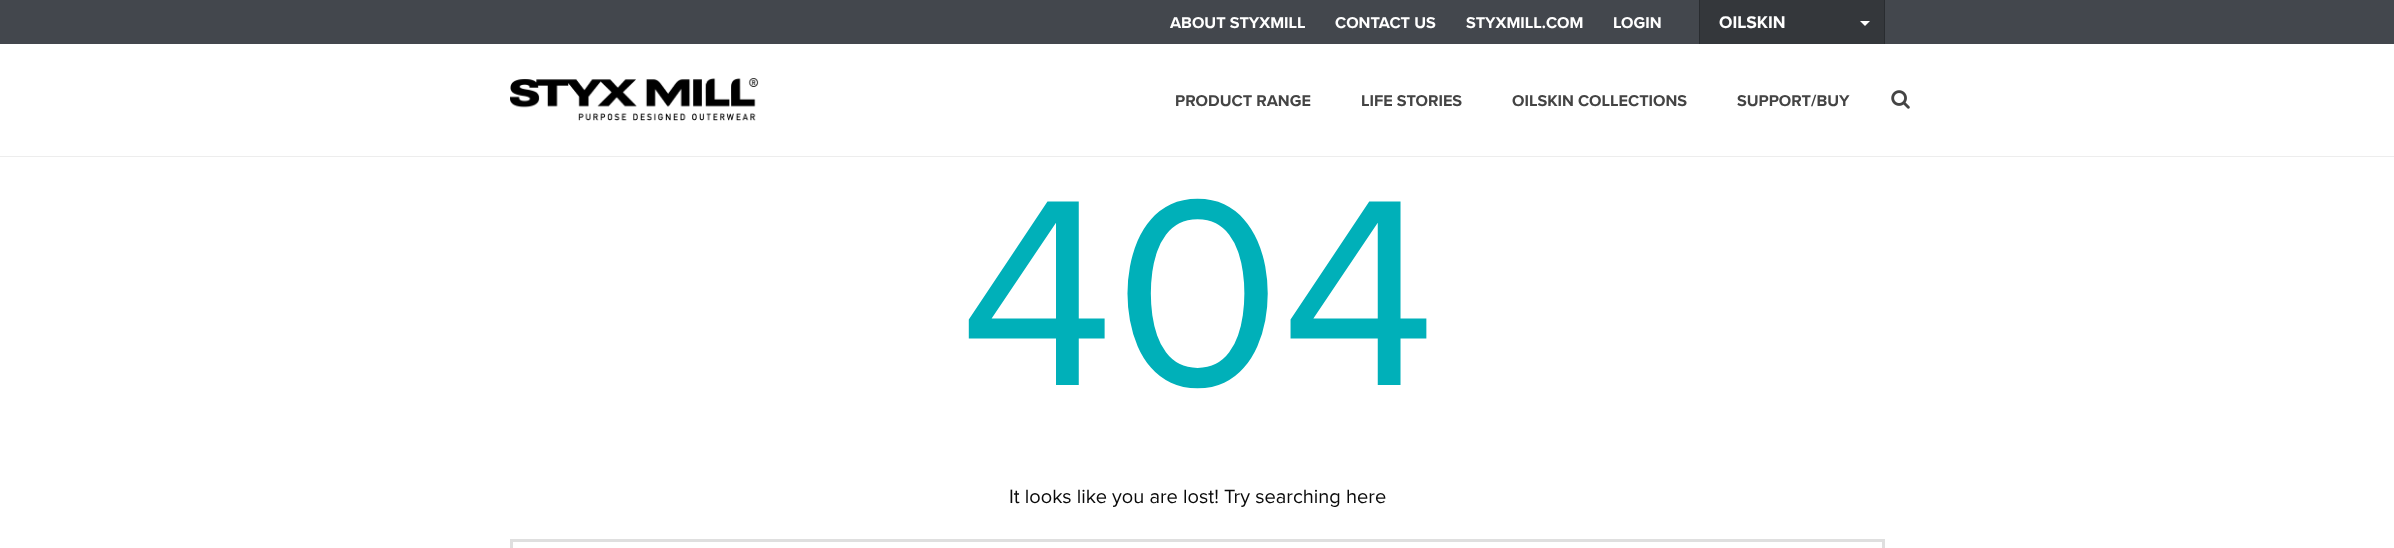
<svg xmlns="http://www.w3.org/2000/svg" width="2394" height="548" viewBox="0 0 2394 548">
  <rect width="100%" height="100%" fill="#fff"/>
  <path d="M0 0h2394v44H0z" fill="#43474d"/>
  <path d="M1700 0h184v44H1700z" fill="#34373b"/>
  <path d="M1860 21L1865 26L1870 21Z" fill="#fff"/>
  <path d="M1884 0h1v44H1884z" fill="#292c30"/>
  <path d="M1699 0h1v44H1699z" fill="#292c30"/>
  <path d="M0 156h2394v1H0z" fill="#ededed"/>
  <image x="510" y="78" width="249" height="43" href="img/1.png"/>
  <image x="1891" y="90" width="19" height="19" href="img/2.png"/>
  <path d="M511.5 540.5h1372v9H511.5z" fill="none" stroke="#dfdfdf" stroke-width="3"/>
  <g font-family="Proxima Nova" font-size="16.25" font-weight="bold" fill="#fff">
    <text x="1170" y="28">ABOUT STYXMILL</text>
    <text x="1335" y="28">CONTACT US</text>
    <text x="1466" y="28">STYXMILL.COM</text>
    <text x="1613" y="28">LOGIN</text>
  </g>
  <text x="1719" y="28" font-family="Proxima Nova" font-size="17.5" font-weight="bold" fill="#fff">OILSKIN</text>
  <g font-family="Proxima Nova" font-size="16.25" font-weight="bold" fill="#444">
    <text x="1175" y="106">PRODUCT RANGE</text>
    <text x="1361" y="106">LIFE STORIES</text>
    <text x="1512" y="106">OILSKIN COLLECTIONS</text>
    <text x="1737" y="106">SUPPORT/BUY</text>
  </g>
  <text x="960" y="385" font-family="Proxima Nova" font-size="275" fill="#00b0b9">404</text>
  <text x="1009" y="503" font-family="Proxima Nova" font-size="20" fill="#0a0a0a">It looks like you are lost! Try searching here</text>
</svg>
